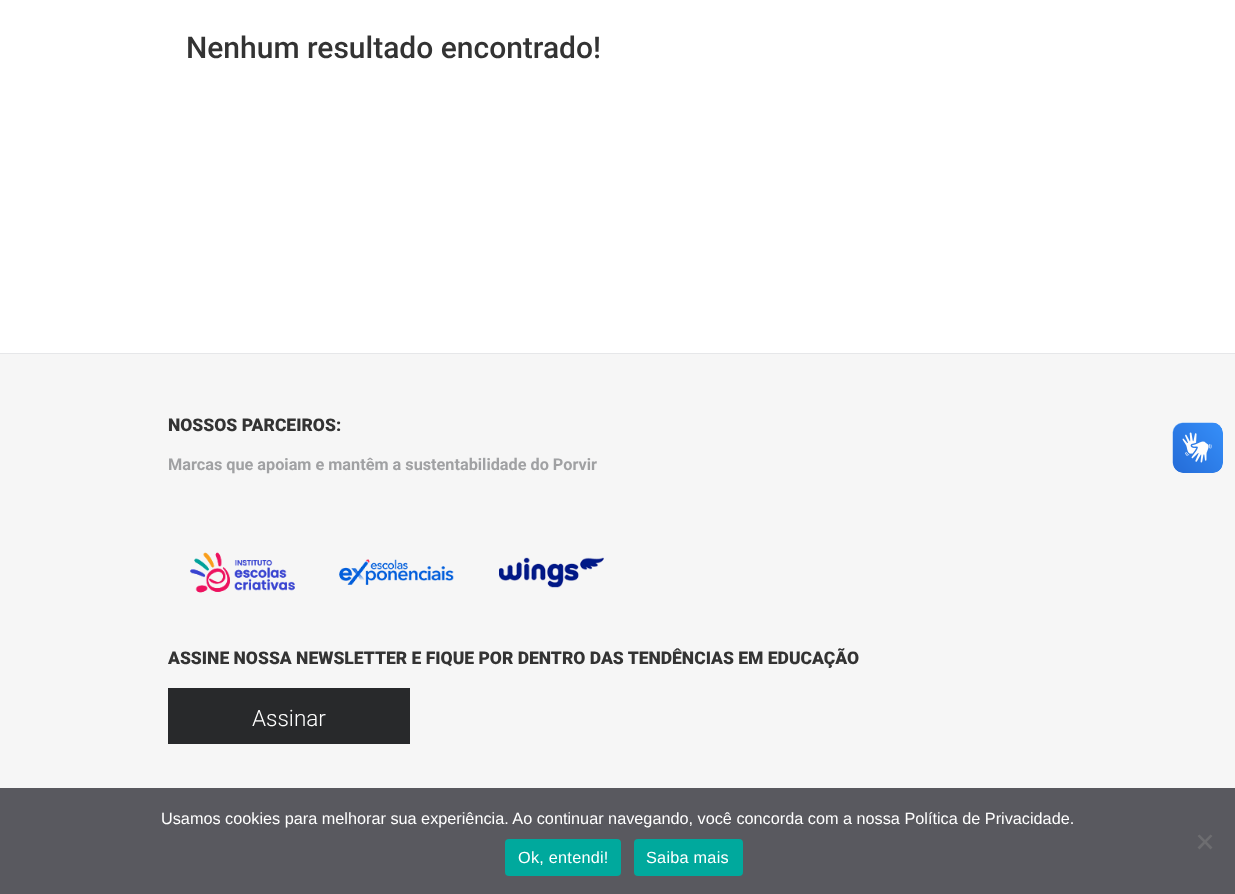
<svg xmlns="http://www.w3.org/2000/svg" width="1235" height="894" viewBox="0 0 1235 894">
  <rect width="100%" height="100%" fill="#fff"/>
  <path d="M0 354h1235v540H0z" fill="#f6f6f6"/>
  <path d="M0 353h1235v1H0z" fill="#e6e7e9"/>
  <image x="190" y="552" width="105" height="41" href="img/1.png"/>
  <image x="339" y="559" width="115" height="26" href="img/2.png"/>
  <image x="499" y="557" width="105" height="31" href="img/3.png"/>
  <path d="M168 688h242v56H168z" fill="#28292b"/>
  <image x="1172" y="422" width="51" height="51" href="img/4.png"/>
  <image x="1173" y="423" width="50" height="50" href="img/5.png"/>
  <path d="M0 788h1235v106H0z" fill="#32323acc"/>
  <path d="M1210.5 834.5L1212.5 836L1199.5 849.5L1197.5 847.5Z" fill="#6d6d70"/>
  <path d="M1197.5 836L1199.5 834.5L1212.5 847.5L1210.5 849.5Z" fill="#6d6d70"/>
  <rect x="505" y="839" width="116" height="37" rx="4" fill="#00a99d"/>
  <rect x="634" y="839" width="109" height="37" rx="4" fill="#00a99d"/>
  <text x="186" y="58" font-family="Roboto" font-size="30" font-weight="500" fill="#333">Nenhum resultado encontrado!</text>
  <text x="168" y="431" font-family="Roboto" font-size="17.5" font-weight="900" fill="#333">NOSSOS PARCEIROS:</text>
  <text x="168" y="470" font-family="Roboto" font-size="16.25" font-weight="bold" fill="#a0a1a3">Marcas que apoiam e mantêm a sustentabilidade do Porvir</text>
  <text x="168" y="664" font-family="Roboto" font-size="17.5" font-weight="900" fill="#333">ASSINE NOSSA NEWSLETTER E FIQUE POR DENTRO DAS TENDÊNCIAS EM EDUCAÇÃO</text>
  <text x="252" y="726" font-family="Roboto" font-size="22.5" font-weight="300" fill="#fff">Assinar</text>
  <text x="161" y="824" font-family="Liberation Sans" font-size="16.25" fill="#fff">Usamos cookies para melhorar sua experiência. Ao continuar navegando, você concorda com a nossa Política de Privacidade.</text>
  <g font-family="Liberation Sans" font-size="16.25" letter-spacing="0.25" fill="#fff">
    <text x="518" y="863">Ok, entendi!</text>
    <text x="646" y="863">Saiba mais</text>
  </g>
</svg>
